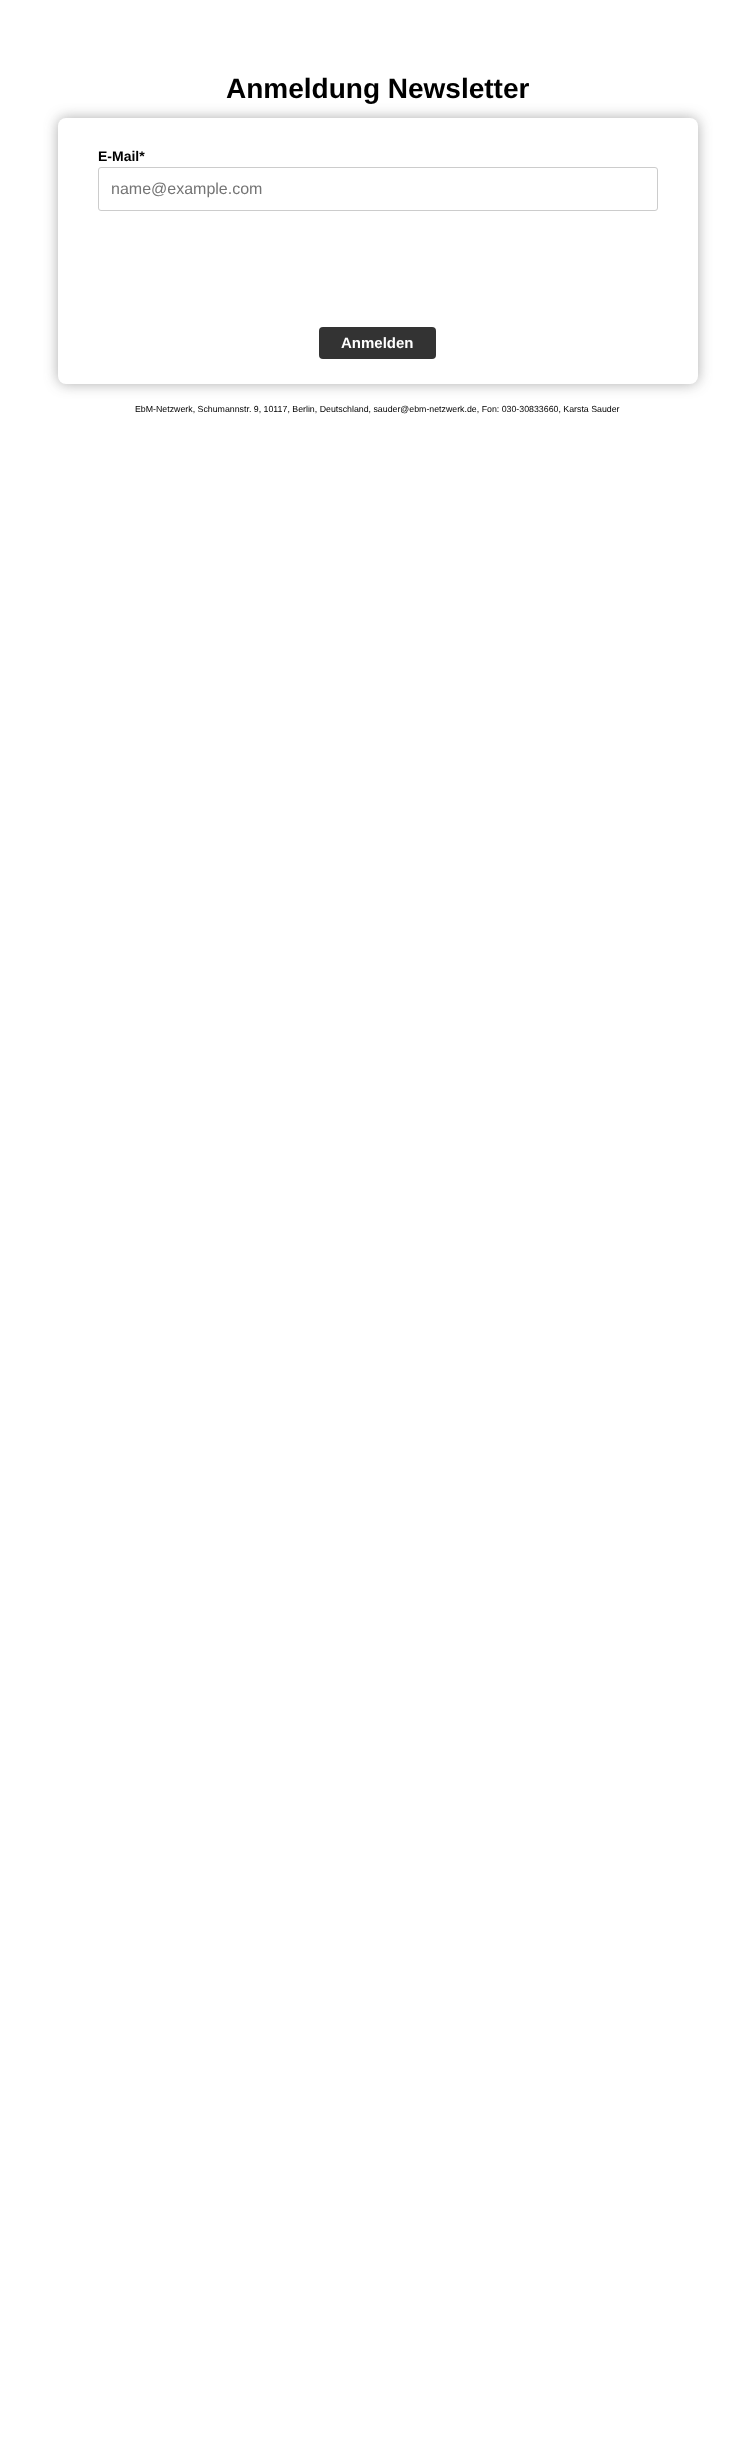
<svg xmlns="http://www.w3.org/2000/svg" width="755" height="2452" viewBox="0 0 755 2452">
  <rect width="100%" height="100%" fill="#fff"/>
  <rect x="58" y="118" width="640" height="266" rx="8" fill="#33333366" filter="blur(7px)"/>
  <rect x="58" y="118" width="640" height="266" rx="8" fill="#fff"/>
  <rect x="98.5" y="167.5" width="559" height="43" rx="2.5" fill="none" stroke="#ccc"/>
  <rect x="319" y="327" width="117" height="32" rx="4" fill="#333"/>
  <text x="226" y="98" font-family="Liberation Sans" font-size="28" font-weight="bold" fill="#000">Anmeldung Newsletter</text>
  <text x="98" y="161" font-family="Liberation Sans" font-size="14" font-weight="bold" fill="#000">E-Mail*</text>
  <text x="111" y="194" font-family="Liberation Sans" font-size="16" fill="#757575">name@example.com</text>
  <text x="341" y="348" font-family="Liberation Sans" font-size="15" font-weight="bold" fill="#fff">Anmelden</text>
  <text x="135" y="412" font-family="Liberation Sans" font-size="8.8" fill="#000">EbM-Netzwerk, Schumannstr. 9, 10117, Berlin, Deutschland, sauder@ebm-netzwerk.de, Fon: 030-30833660, Karsta Sauder</text>
</svg>
